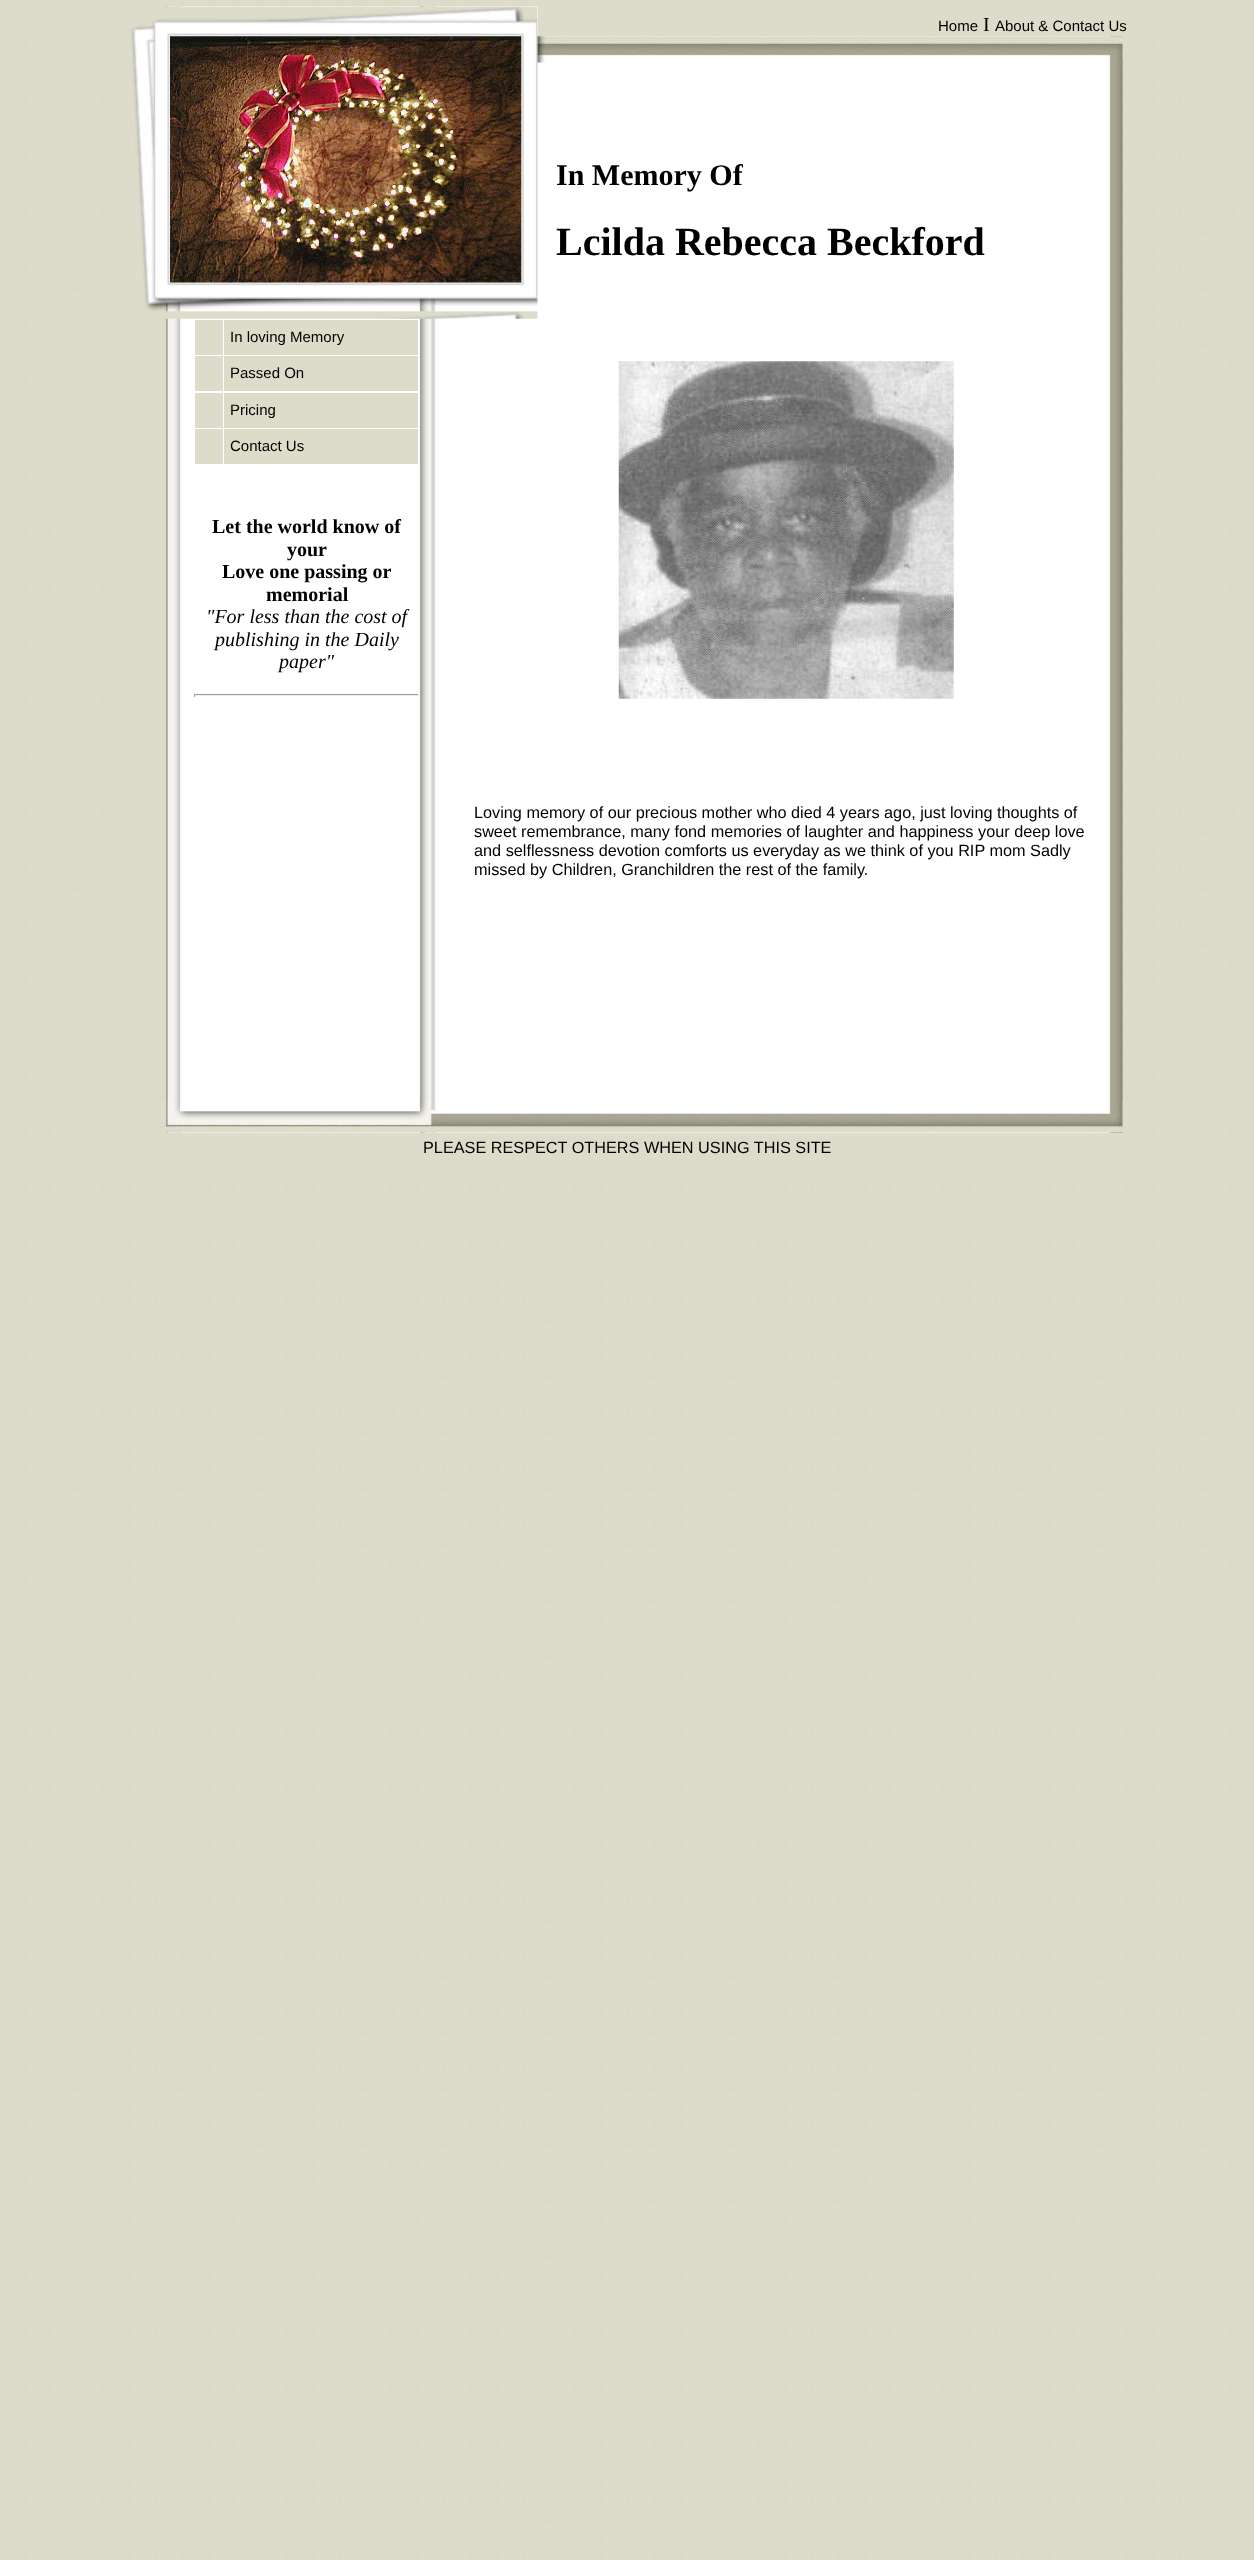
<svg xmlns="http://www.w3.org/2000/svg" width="1254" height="2560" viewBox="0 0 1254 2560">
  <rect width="100%" height="100%" fill="#fff"/>
  <image x="0" y="0" width="1254" height="2560" href="img/1.png"/>
  <image x="130" y="6" width="994" height="1127" href="img/2.png"/>
  <image x="128" y="6" width="410" height="313" href="img/3.png"/>
  <image x="170" y="36" width="352" height="247" href="img/4.png"/>
  <path d="M538 6h587v30H538z" fill="#dddcca"/>
  <image x="537" y="36" width="589" height="27" href="img/5.png"/>
  <path d="M418 319h1v146H418z" fill="#fff"/>
  <path d="M195 320h28v35H195z" fill="#dddcca"/>
  <path d="M224 320h194v35H224z" fill="#dddcca"/>
  <path d="M195 356h28v35H195z" fill="#dddcca"/>
  <path d="M224 356h194v35H224z" fill="#dddcca"/>
  <path d="M195 393h28v35H195z" fill="#dddcca"/>
  <path d="M224 393h194v35H224z" fill="#dddcca"/>
  <path d="M195 429h28v35H195z" fill="#dddcca"/>
  <path d="M224 429h194v35H224z" fill="#dddcca"/>
  <path d="M194 694h225v1H194z" fill="#9f9f9f"/>
  <path d="M418 694h1v3H418z" fill="#eee"/>
  <path d="M194 695h225v1H194z" fill="#eee"/>
  <path d="M194 694h1v3H194z" fill="#9f9f9f"/>
  <image x="618" y="361" width="336" height="338" href="img/6.png"/>
  <image x="160" y="1101" width="967" height="32" href="img/7.png"/>
  <path d="M129 1133h999v21H129z" fill="#dddcca"/>
  <text x="938" y="31" font-family="Liberation Sans" font-size="15" fill="#000">Home</text>
  <text x="983" y="31" font-family="Liberation Serif" font-size="20" fill="#000">I</text>
  <text x="995" y="31" font-family="Liberation Sans" font-size="15" fill="#000">About &amp; Contact Us</text>
  <text x="556" y="185" font-family="Liberation Serif" font-size="30" font-weight="bold" fill="#000">In Memory Of</text>
  <text x="556" y="255" font-family="Liberation Serif" font-size="40" font-weight="bold" fill="#000">Lcilda Rebecca Beckford</text>
  <g font-family="Liberation Sans" font-size="15" fill="#000">
    <text x="230" y="342">In loving Memory</text>
    <text x="230" y="378">Passed On</text>
    <text x="230" y="415">Pricing</text>
    <text x="230" y="451">Contact Us</text>
  </g>
  <g font-family="Liberation Serif" font-size="20" font-weight="bold" fill="#000">
    <text x="212" y="533">Let the world know of</text>
    <text x="287" y="556">your</text>
    <text x="222" y="578">Love one passing or</text>
    <text x="266" y="601">memorial</text>
  </g>
  <g font-family="Liberation Serif" font-size="20" font-style="italic" fill="#000">
    <text x="206" y="623">"For less than the cost of</text>
    <text x="215" y="646">publishing in the Daily</text>
    <text x="279" y="668">paper"</text>
  </g>
  <g font-family="Liberation Sans" font-size="16.25" fill="#000">
    <text x="474" y="818">Loving memory of our precious mother who died 4 years ago, just loving thoughts of</text>
    <text x="474" y="837">sweet remembrance, many fond memories of laughter and happiness your deep love</text>
    <text x="474" y="856">and selflessness devotion comforts us everyday as we think of you RIP mom Sadly</text>
    <text x="474" y="875">missed by Children, Granchildren the rest of the family.</text>
    <text x="423" y="1153">PLEASE RESPECT OTHERS WHEN USING THIS SITE</text>
  </g>
</svg>
